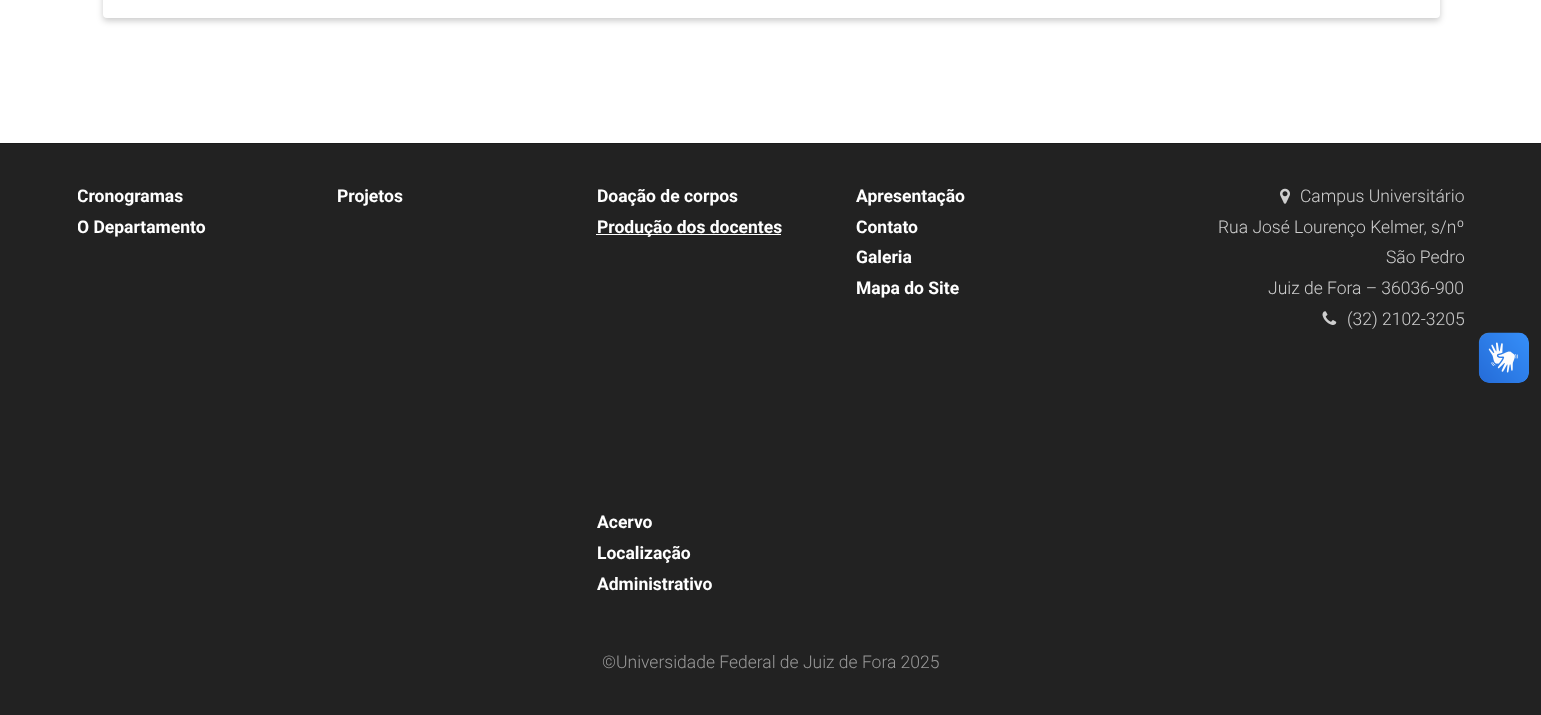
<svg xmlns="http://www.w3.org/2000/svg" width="1541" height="715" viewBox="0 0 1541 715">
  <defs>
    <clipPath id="clip1"><path d="M78 181h1021v428H78z"/></clipPath>
  </defs>
  <rect width="100%" height="100%" fill="#fff"/>
  <rect x="103" y="-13" width="1337" height="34" rx="4" fill="#00000033" filter="blur(3px)"/>
  <rect x="103" y="-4" width="1337" height="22" rx="4" fill="#fff"/>
  <path d="M0 144h1541v571H0z" fill="#222"/>
  <path d="M0 143h1541v1H0z" fill="#1b1b1b"/>
  <path d="M596 234h185v1H596z" fill="#fff"/>
  <image x="1280" y="188" width="10" height="16" href="img/1.png"/>
  <image x="1322" y="311" width="15" height="14" href="img/2.png"/>
  <image x="1478" y="332" width="51" height="51" href="img/3.png"/>
  <image x="1479" y="333" width="50" height="50" href="img/4.png"/>
  <g clip-path="url(#clip1)">
    <text x="77" y="202" font-family="Roboto" font-size="17.5" font-weight="bold" fill="#fff">Cronogramas</text>
  </g>
  <g font-family="Roboto" font-size="17.5" font-weight="bold" fill="#fff">
    <text x="337" y="202">Projetos</text>
    <text x="597" y="202">Doação de corpos</text>
    <text x="856" y="202">Apresentação</text>
  </g>
  <g clip-path="url(#clip1)">
    <text x="77" y="233" font-family="Roboto" font-size="17.5" font-weight="bold" fill="#fff">O Departamento</text>
  </g>
  <g font-family="Roboto" font-size="17.5" font-weight="bold" fill="#fff">
    <text x="597" y="233">Produção dos docentes</text>
    <text x="856" y="233">Contato</text>
    <text x="856" y="263">Galeria</text>
    <text x="856" y="294">Mapa do Site</text>
    <text x="597" y="528">Acervo</text>
    <text x="597" y="559">Localização</text>
    <text x="597" y="590">Administrativo</text>
  </g>
  <g font-family="Roboto" font-size="17.5" font-weight="300" fill="#cecece">
    <text x="1300" y="202">Campus Universitário</text>
    <text x="1218" y="233">Rua José Lourenço Kelmer, s/nº</text>
    <text x="1386" y="263">São Pedro</text>
    <text x="1268" y="294">Juiz de Fora – 36036-900</text>
    <text x="1347" y="325">(32) 2102-3205</text>
  </g>
  <text x="602" y="668" font-family="Roboto" font-size="17.5" font-weight="300" fill="#999">©Universidade Federal de Juiz de Fora 2025</text>
</svg>
